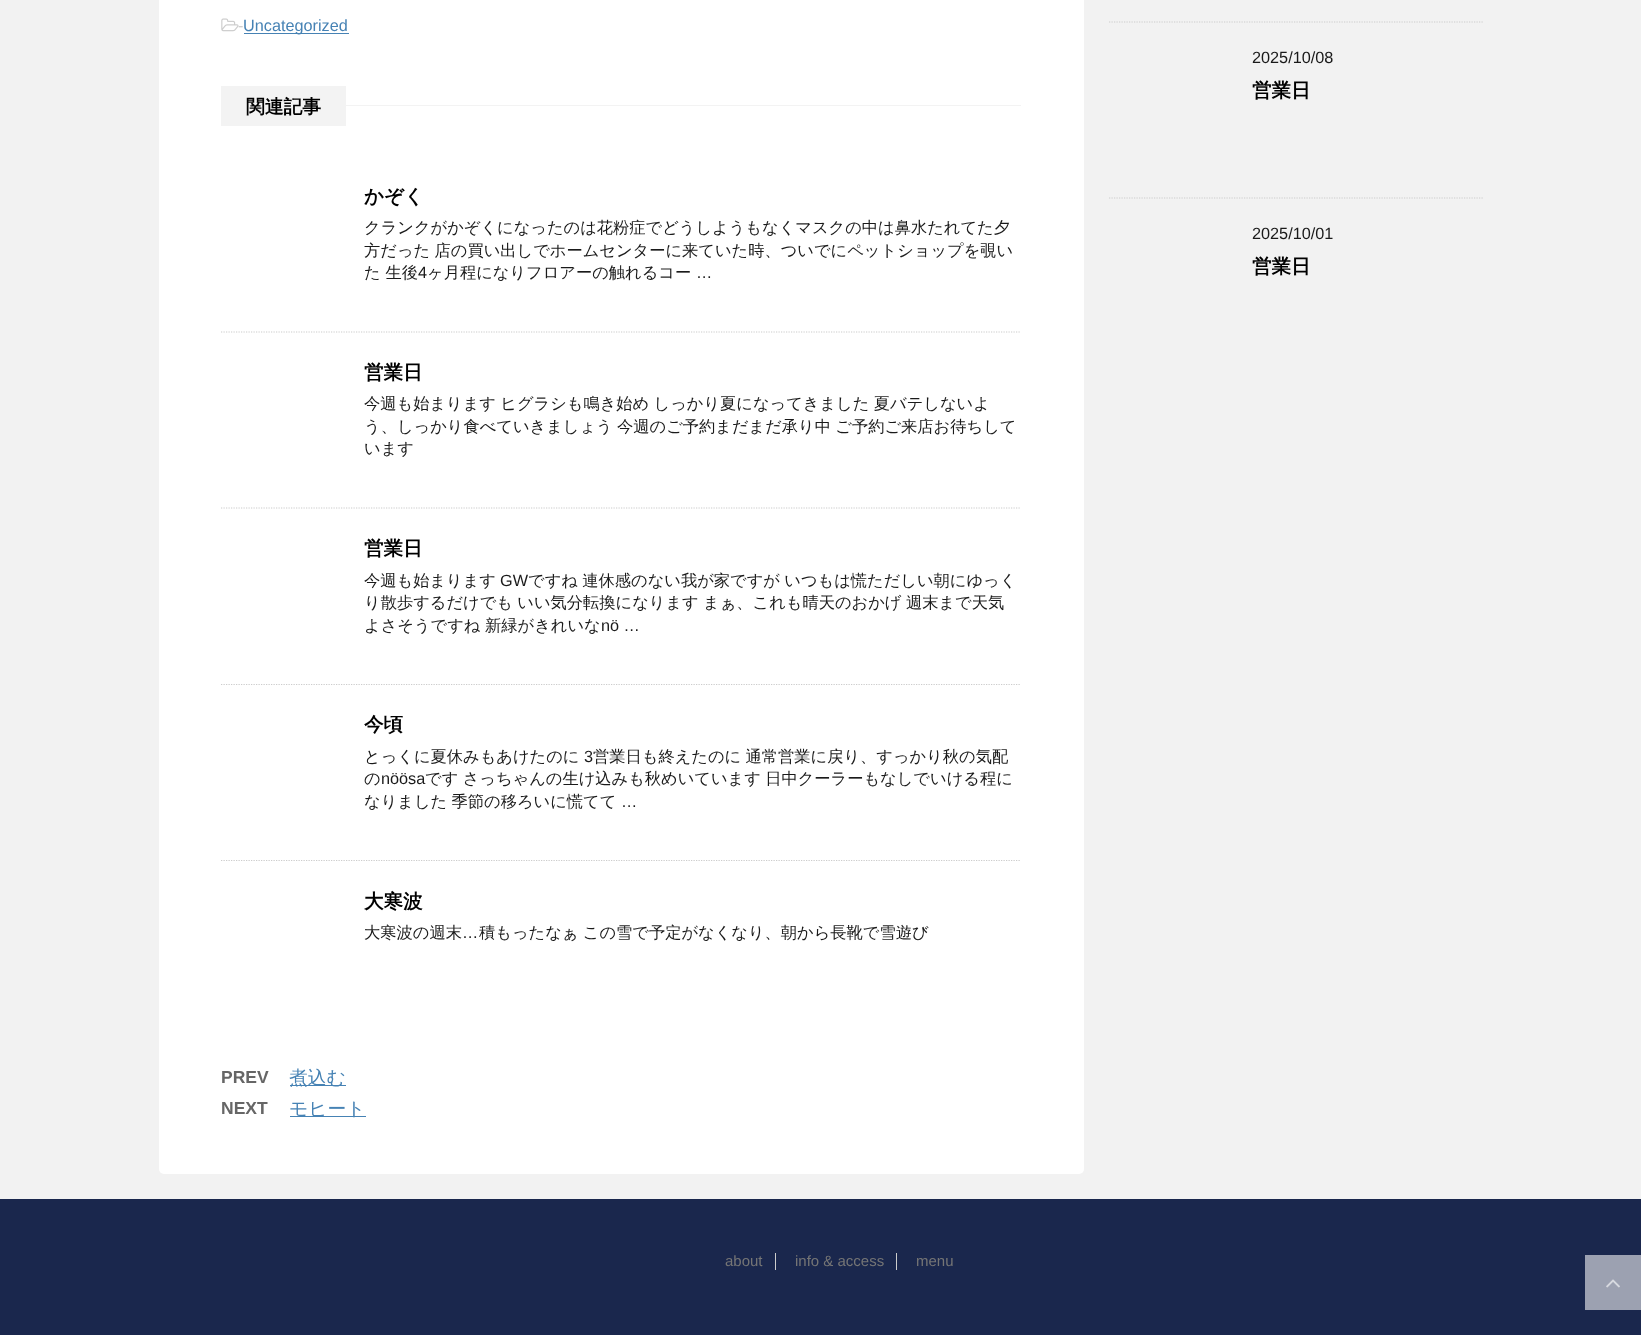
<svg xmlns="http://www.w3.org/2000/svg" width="1641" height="1335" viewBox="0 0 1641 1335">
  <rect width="100%" height="100%" fill="#f2f2f2"/>
  <rect x="159" y="-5" width="925" height="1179" rx="5" fill="#fff"/>
  <image x="221" y="18" width="18" height="14" href="img/1.png"/>
  <path d="M244 33h105v1H244z" fill="#4682b4"/>
  <path d="M346 105h675v1H346z" fill="#f3f3f3"/>
  <path d="M221 86h125v40H221z" fill="#f3f3f3"/>
  <path d="M221 332H1021" fill="none" stroke="#ccc" stroke-width="1.2" stroke-dasharray="1.25 1.25"/>
  <path d="M221 508H1021" fill="none" stroke="#ccc" stroke-width="1.2" stroke-dasharray="1.25 1.25"/>
  <path d="M221 684.5H1021" fill="none" stroke="#ccc" stroke-width="1.2" stroke-dasharray="1.25 1.25"/>
  <path d="M221 860.5H1021" fill="none" stroke="#ccc" stroke-width="1.2" stroke-dasharray="1.25 1.25"/>
  <path d="M290 1085h56v1H290z" fill="#4682b4"/>
  <path d="M290 1116h76v1H290z" fill="#4682b4"/>
  <path d="M1109 22H1484" fill="none" stroke="#ccc" stroke-width="1.2" stroke-dasharray="1.25 1.25"/>
  <path d="M1109 198H1484" fill="none" stroke="#ccc" stroke-width="1.2" stroke-dasharray="1.25 1.25"/>
  <path d="M0 1199h1641v136H0z" fill="#1a274d"/>
  <path d="M775 1253h1v17H775z" fill="#ccc"/>
  <path d="M896 1253h1v17H896z" fill="#ccc"/>
  <path d="M1585 1255h56v55H1585z" fill="#9ca1b1"/>
  <image x="1606" y="1279" width="14" height="9" href="img/2.png"/>
  <text x="238" y="31" font-family="Liberation Sans" font-size="16.25" fill="#ccc">-</text>
  <text x="243" y="31" font-family="Liberation Sans" font-size="16.25" fill="#4682b4">Uncategorized</text>
  <text x="246" y="113" font-family="WenQuanYi Zen Hei" font-size="18.75" font-weight="bold" fill="#000">関連記事</text>
  <text x="364" y="203" font-family="WenQuanYi Zen Hei" font-size="19.5" font-weight="bold" fill="#000">かぞく</text>
  <g font-family="WenQuanYi Zen Hei" font-size="16.25" font-weight="500" fill="#1a1a1a">
    <text x="364" y="233">クランクがかぞくになったのは花粉症でどうしようもなくマスクの中は鼻水たれてた夕</text>
    <text x="364" y="256" word-spacing="-0.5">方だった 店の買い出しでホームセンターに来ていた時、ついでにペットショップを覗い</text>
    <text x="364" y="278">た 生後</text>
  </g>
  <text x="418" y="278" font-family="Liberation Sans" font-size="16.25" fill="#1a1a1a">4</text>
  <text x="427" y="278" font-family="WenQuanYi Zen Hei" font-size="16.25" font-weight="500" fill="#1a1a1a">ヶ月程になりフロアーの触れるコー</text>
  <text x="696" y="278" font-family="Liberation Sans" font-size="16.25" fill="#1a1a1a">…</text>
  <text x="364" y="379" font-family="WenQuanYi Zen Hei" font-size="19.5" font-weight="bold" fill="#000">営業日</text>
  <g font-family="WenQuanYi Zen Hei" font-size="16.25" font-weight="500" fill="#1a1a1a">
    <text x="364" y="409" word-spacing="-0.5">今週も始まります ヒグラシも鳴き始め しっかり夏になってきました 夏バテしないよ</text>
    <text x="364" y="432" word-spacing="-0.5">う、しっかり食べていきましょう 今週のご予約まだまだ承り中 ご予約ご来店お待ちして</text>
    <text x="364" y="454">います</text>
  </g>
  <text x="364" y="555" font-family="WenQuanYi Zen Hei" font-size="19.5" font-weight="bold" fill="#000">営業日</text>
  <text x="364" y="586" font-family="WenQuanYi Zen Hei" font-size="16.25" font-weight="500" fill="#1a1a1a">今週も始まります</text>
  <text x="500" y="586" font-family="Liberation Sans" font-size="16.25" fill="#1a1a1a">GW</text>
  <g font-family="WenQuanYi Zen Hei" font-size="16.25" font-weight="500" fill="#1a1a1a">
    <text x="528" y="586" word-spacing="-0.5">ですね 連休感のない我が家ですが いつもは慌ただしい朝にゆっく</text>
    <text x="364" y="608" word-spacing="-0.5">り散歩するだけでも いい気分転換になります まぁ、これも晴天のおかげ 週末まで天気</text>
    <text x="364" y="631">よさそうですね</text>
    <text x="485" y="631">新緑がきれいな</text>
  </g>
  <text x="601" y="631" font-family="Liberation Sans" font-size="16.25" fill="#1a1a1a">nö …</text>
  <text x="364" y="731" font-family="WenQuanYi Zen Hei" font-size="19.5" font-weight="bold" fill="#000">今頃</text>
  <text x="364" y="762" font-family="WenQuanYi Zen Hei" font-size="16.25" font-weight="500" fill="#1a1a1a">とっくに夏休みもあけたのに</text>
  <text x="584" y="762" font-family="Liberation Sans" font-size="16.25" fill="#1a1a1a">3</text>
  <g font-family="WenQuanYi Zen Hei" font-size="16.25" font-weight="500" fill="#1a1a1a">
    <text x="593" y="762" word-spacing="-0.5">営業日も終えたのに 通常営業に戻り、すっかり秋の気配</text>
    <text x="364" y="784">の</text>
  </g>
  <text x="381" y="784" font-family="Liberation Sans" font-size="16.25" fill="#1a1a1a">nöösa</text>
  <g font-family="WenQuanYi Zen Hei" font-size="16.25" font-weight="500" fill="#1a1a1a">
    <text x="425" y="784" word-spacing="-0.5">です さっちゃんの生け込みも秋めいています 日中クーラーもなしでいける程に</text>
    <text x="364" y="807" word-spacing="-0.5">なりました 季節の移ろいに慌てて</text>
  </g>
  <text x="621" y="807" font-family="Liberation Sans" font-size="16.25" fill="#1a1a1a">…</text>
  <text x="364" y="908" font-family="WenQuanYi Zen Hei" font-size="19.5" font-weight="bold" fill="#000">大寒波</text>
  <text x="364" y="938" font-family="WenQuanYi Zen Hei" font-size="16.25" font-weight="500" fill="#1a1a1a">大寒波の週末</text>
  <text x="462" y="938" font-family="Liberation Sans" font-size="16.25" fill="#1a1a1a">…</text>
  <text x="479" y="938" word-spacing="-0.5" font-family="WenQuanYi Zen Hei" font-size="16.25" font-weight="500" fill="#1a1a1a">積もったなぁ この雪で予定がなくなり、朝から長靴で雪遊び</text>
  <text x="221" y="1083" font-family="Liberation Sans" font-size="17.5" font-weight="bold" fill="#666">PREV</text>
  <text x="289" y="1084" font-family="WenQuanYi Zen Hei" font-size="18.75" font-weight="500" fill="#4682b4">煮込む</text>
  <text x="221" y="1114" font-family="Liberation Sans" font-size="17.5" font-weight="bold" fill="#666">NEXT</text>
  <text x="289" y="1115" font-family="WenQuanYi Zen Hei" font-size="18.75" font-weight="500" fill="#4682b4">モヒート</text>
  <text x="1252" y="63" font-family="Liberation Sans" font-size="16.25" fill="#1a1a1a">2025/10/08</text>
  <text x="1252" y="97" font-family="WenQuanYi Zen Hei" font-size="19.5" font-weight="bold" fill="#000">営業日</text>
  <text x="1252" y="239" font-family="Liberation Sans" font-size="16.25" fill="#1a1a1a">2025/10/01</text>
  <text x="1252" y="273" font-family="WenQuanYi Zen Hei" font-size="19.5" font-weight="bold" fill="#000">営業日</text>
  <g font-family="Liberation Sans" font-size="15" fill="#757575">
    <text x="725" y="1266">about</text>
    <text x="795" y="1266">info &amp; access</text>
    <text x="916" y="1266">menu</text>
  </g>
</svg>
